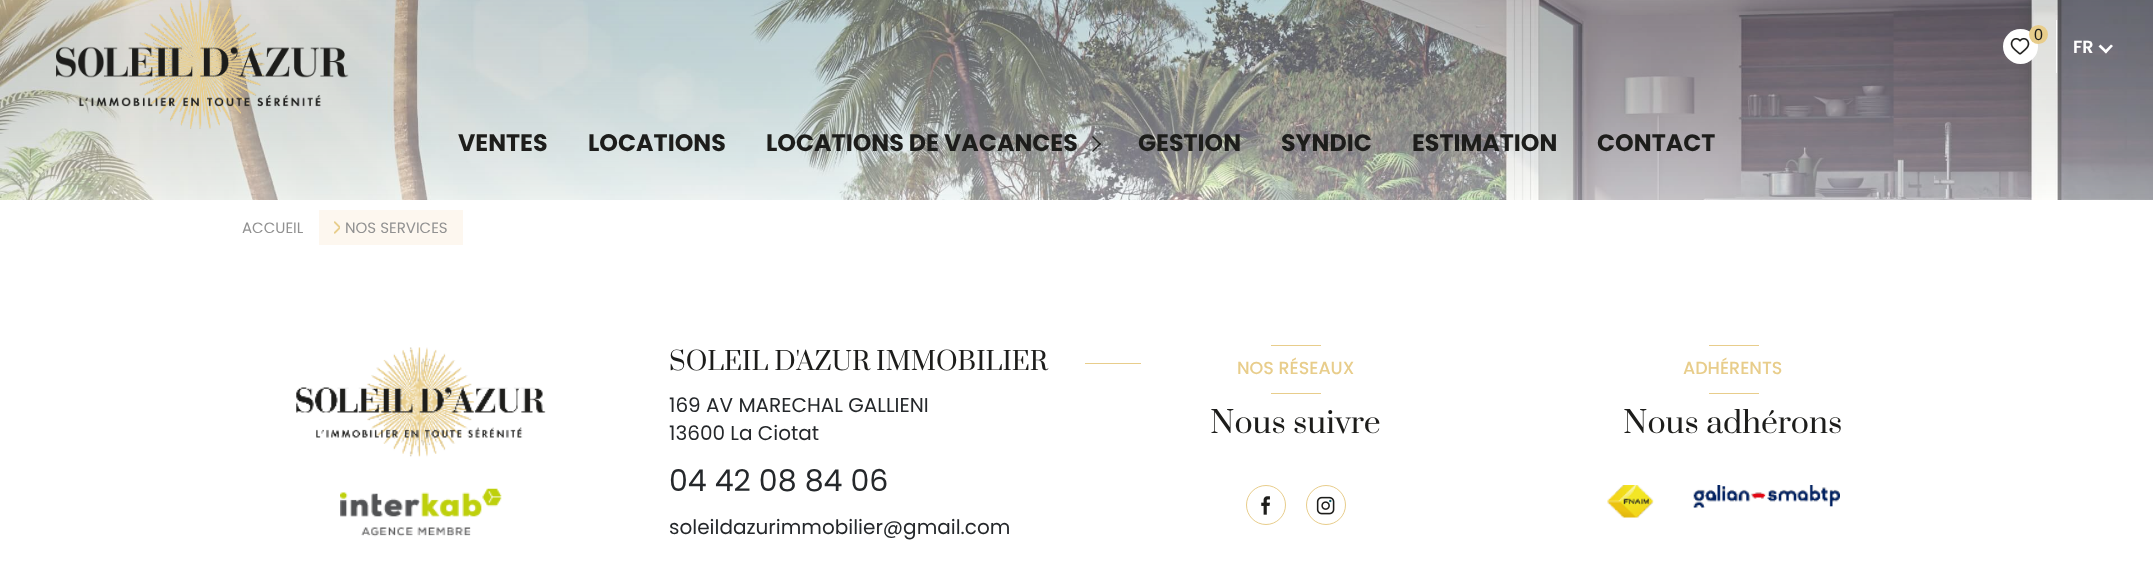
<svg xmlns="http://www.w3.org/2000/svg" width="2153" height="572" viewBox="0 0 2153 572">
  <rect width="100%" height="100%" fill="#fff"/>
  <image x="0" y="0" width="2153" height="200" href="img/1.png"/>
  <circle cx="2020.5" cy="46.5" r="17.5" fill="#fff"/>
  <image x="2010" y="37" width="20" height="18" href="img/2.png"/>
  <circle cx="2038.5" cy="34.5" r="9.5" fill="#e8cd8b"/>
  <path d="M2056 20h1v53H2056z" fill="#fff"/>
  <path d="M2111 44.5L2113 46L2106 53.5L2104 51.5Z" fill="#fff"/>
  <path d="M2100.5 44.5L2107.5 51.5L2106 53.5L2098.5 46.5Z" fill="#fff"/>
  <image x="56" y="0" width="293" height="129" href="img/3.png"/>
  <path d="M1101 144L1093 152L1092 151L1100 143Z" fill="#1d1d1b"/>
  <path d="M1101 144L1100 145L1092 137L1093 136Z" fill="#1d1d1b"/>
  <path d="M319 210h144v35H319z" fill="#fdf7ef"/>
  <image x="334" y="221" width="6" height="13" href="img/4.png"/>
  <image x="296" y="347" width="250" height="110" href="img/5.png"/>
  <image x="340" y="488" width="162" height="49" href="img/6.png"/>
  <path d="M1085 363h56v1H1085z" fill="#e8cd8b"/>
  <path d="M1271 345h50v1H1271z" fill="#e8cd8b"/>
  <path d="M1271 393h50v1H1271z" fill="#e8cd8b"/>
  <circle cx="1266" cy="505" r="19.5" fill="none" stroke="#e8cd8b"/>
  <image x="1261" y="496" width="9" height="19" href="img/7.png"/>
  <circle cx="1326" cy="505" r="19.5" fill="none" stroke="#e8cd8b"/>
  <image x="1316" y="496" width="19" height="19" href="img/8.png"/>
  <path d="M1709 345h50v1H1709z" fill="#e8cd8b"/>
  <path d="M1709 393h50v1H1709z" fill="#e8cd8b"/>
  <image x="1607" y="485" width="47" height="33" href="img/9.png"/>
  <image x="1693" y="485" width="147" height="23" href="img/10.png"/>
  <text x="2034" y="40" font-family="Liberation Sans" font-size="16" fill="#1d1d1b">0</text>
  <text x="2073" y="53" font-family="Poppins" font-size="17.5" font-weight="600" fill="#fff">FR</text>
  <g font-family="Poppins" font-size="23.75" font-weight="bold" fill="#1d1d1b">
    <text x="458" y="151">VENTES</text>
    <text x="588" y="151">LOCATIONS</text>
    <text x="766" y="151">LOCATIONS DE VACANCES</text>
    <text x="1138" y="151">GESTION</text>
    <text x="1281" y="151">SYNDIC</text>
    <text x="1412" y="151">ESTIMATION</text>
    <text x="1597" y="151">CONTACT</text>
  </g>
  <g font-family="Poppins" font-size="15" fill="#919191">
    <text x="242" y="233">ACCUEIL</text>
    <text x="345" y="233">NOS SERVICES</text>
  </g>
  <text x="669" y="370" font-family="Prata" font-size="25" fill="#1d1d1b">SOLEIL D'AZUR IMMOBILIER</text>
  <g font-family="Poppins" font-size="20" fill="#25282b">
    <text x="669" y="412">169 AV MARECHAL GALLIENI</text>
    <text x="669" y="440">13600 La Ciotat</text>
  </g>
  <text x="669" y="491" font-family="Poppins" font-size="30" fill="#25282b">04 42 08 84 06</text>
  <text x="669" y="534" font-family="Poppins" font-size="20" fill="#25282b">soleildazurimmobilier@gmail.com</text>
  <text x="1237" y="374" font-family="Poppins" font-size="17.5" font-weight="500" fill="#e8cd8b">NOS RÉSEAUX</text>
  <text x="1210" y="433" font-family="Prata" font-size="30" fill="#1d1d1b">Nous suivre</text>
  <text x="1683" y="374" font-family="Poppins" font-size="17.5" font-weight="500" fill="#e8cd8b">ADHÉRENTS</text>
  <text x="1623" y="433" font-family="Prata" font-size="30" fill="#1d1d1b">Nous adhérons</text>
</svg>
